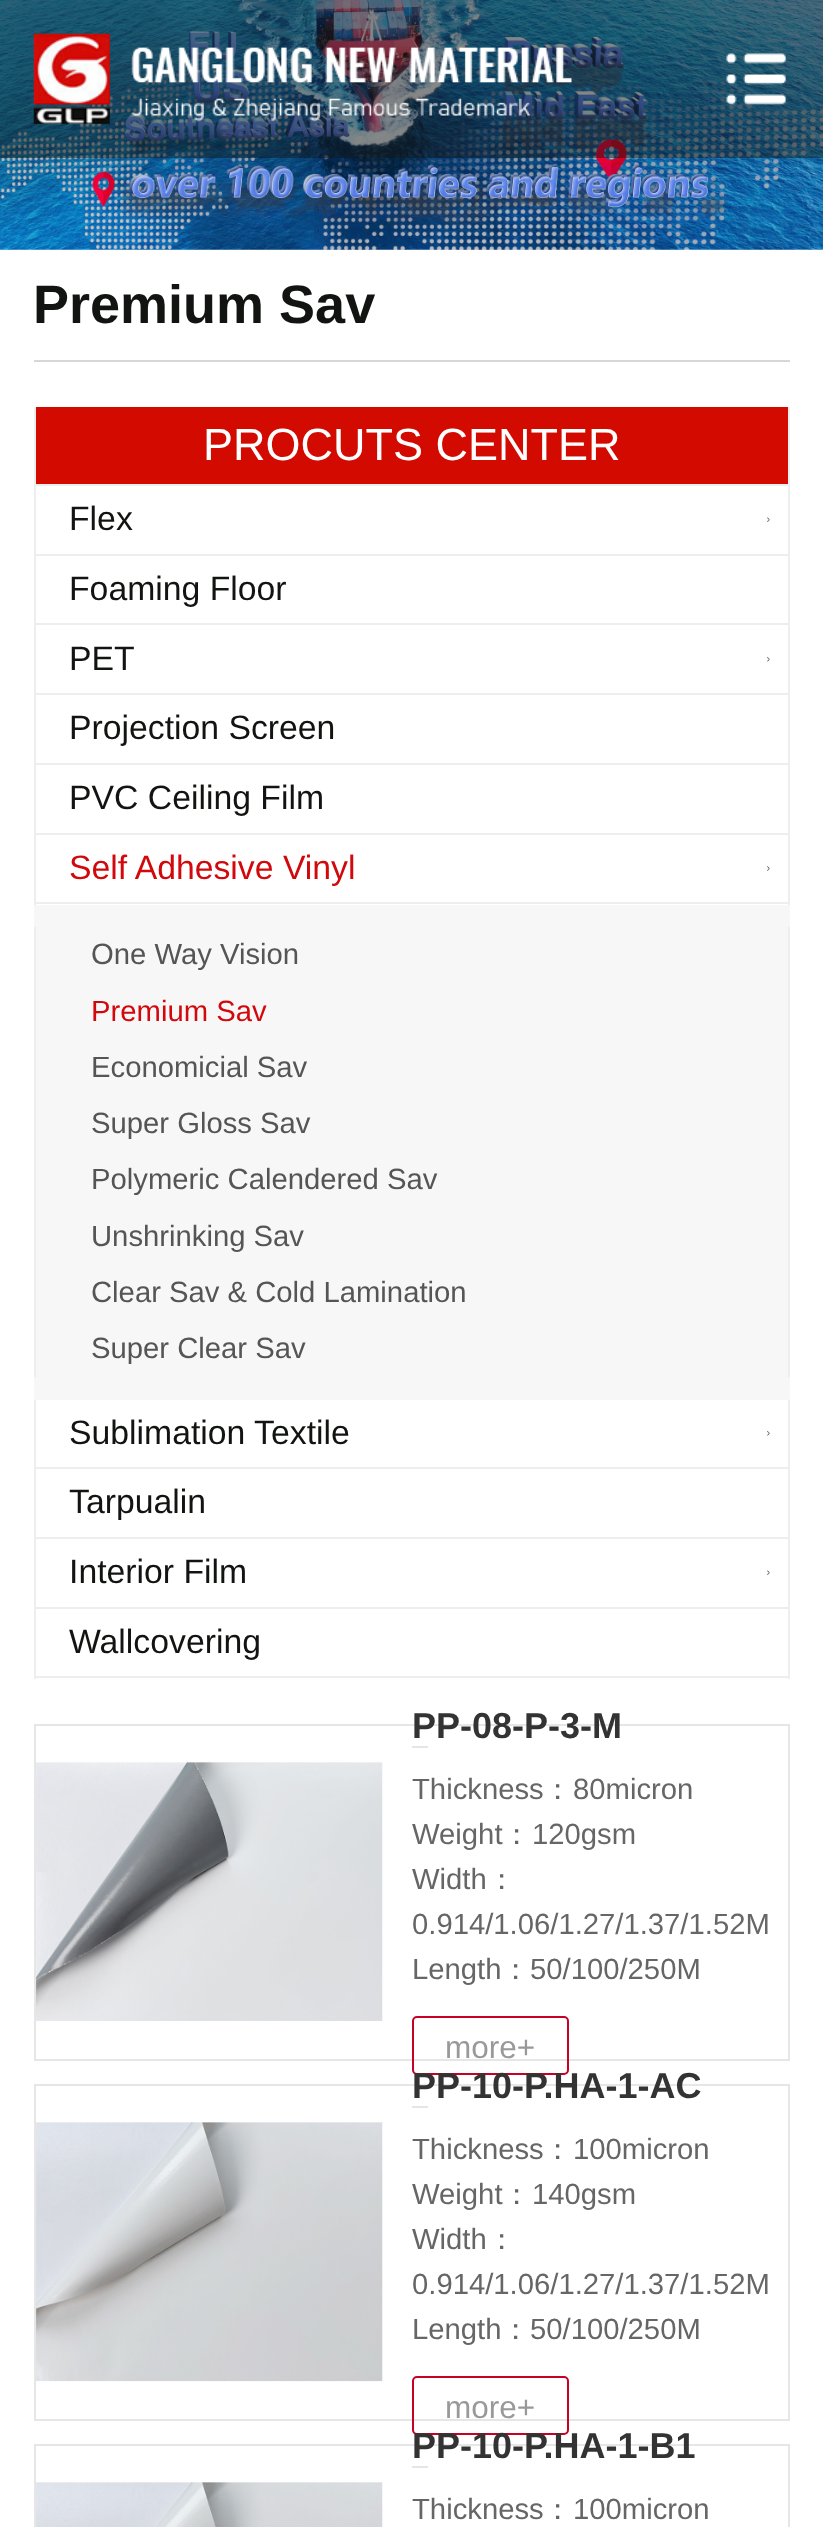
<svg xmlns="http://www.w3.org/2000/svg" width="823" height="2527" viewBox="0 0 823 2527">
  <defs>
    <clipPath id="clip1"><path d="M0 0H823V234H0ZM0 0H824V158H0Z" clip-rule="evenodd"/></clipPath>
  </defs>
  <rect width="100%" height="100%" fill="#fff"/>
  <image x="0" y="0" width="823" height="250" href="img/1.png"/>
  <g clip-path="url(#clip1)">
    <path d="M-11 -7h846v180H-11z" fill="#0000001a" filter="blur(20px)"/>
  </g>
  <path d="M0 0h823v158H0z" fill="#10121080"/>
  <image x="33" y="33" width="539" height="91" href="img/2.png"/>
  <image x="726" y="53" width="60" height="52" href="img/3.png"/>
  <path d="M34 360h756v2H34z" fill="#d7d7d7"/>
  <path d="M36 407h752v77H36z" fill="#d20a00"/>
  <path d="M788 407h2v498H788z" fill="#eee"/>
  <path d="M34 484h756v2H34z" fill="#eee"/>
  <path d="M34 407h2v79H34z" fill="#eee"/>
  <path d="M34 554h756v2H34z" fill="#eee"/>
  <path d="M34 486h2v70H34z" fill="#eee"/>
  <image x="767" y="517" width="3" height="5" href="img/4.png"/>
  <path d="M34 623h756v2H34z" fill="#eee"/>
  <path d="M34 556h2v70H34z" fill="#eee"/>
  <path d="M34 693h756v2H34z" fill="#eee"/>
  <path d="M34 626h2v69H34z" fill="#eee"/>
  <image x="767" y="657" width="3" height="5" href="img/5.png"/>
  <path d="M34 763h756v2H34z" fill="#eee"/>
  <path d="M34 695h2v70H34z" fill="#eee"/>
  <path d="M34 833h756v2H34z" fill="#eee"/>
  <path d="M34 765h2v70H34z" fill="#eee"/>
  <path d="M34 902h756v2H34z" fill="#eee"/>
  <path d="M34 835h2v70H34z" fill="#eee"/>
  <image x="767" y="866" width="3" height="5" href="img/6.png"/>
  <path d="M34 905h756v495H34z" fill="#f7f7f7"/>
  <path d="M788 927h2v450H788z" fill="#eee"/>
  <path d="M34 927h2v450H34z" fill="#eee"/>
  <path d="M788 1400h2v279H788z" fill="#eee"/>
  <path d="M34 1467h756v2H34z" fill="#eee"/>
  <path d="M34 1400h2v69H34z" fill="#eee"/>
  <image x="767" y="1431" width="3" height="5" href="img/5.png"/>
  <path d="M34 1537h756v2H34z" fill="#eee"/>
  <path d="M34 1469h2v70H34z" fill="#eee"/>
  <path d="M34 1607h756v2H34z" fill="#eee"/>
  <path d="M34 1539h2v70H34z" fill="#eee"/>
  <image x="767" y="1570" width="3" height="5" href="img/4.png"/>
  <path d="M34 1676h756v2H34z" fill="#eee"/>
  <path d="M34 1609h2v70H34z" fill="#eee"/>
  <path d="M35 1725h754v335H35z" fill="none" stroke="#e6e6e6" stroke-width="2"/>
  <image x="36" y="1762" width="347" height="259" href="img/7.png"/>
  <path d="M412 1746h16v2H412z" fill="#e6e6e6"/>
  <rect x="413" y="2017" width="155" height="57" rx="4" fill="none" stroke="#c70025" stroke-width="2"/>
  <path d="M35 2085h754v335H35z" fill="none" stroke="#e6e6e6" stroke-width="2"/>
  <image x="36" y="2122" width="347" height="260" href="img/8.png"/>
  <path d="M412 2106h16v2H412z" fill="#e6e6e6"/>
  <rect x="413" y="2377" width="155" height="57" rx="4" fill="none" stroke="#c70025" stroke-width="2"/>
  <path d="M35 2445h754v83H35z" fill="none" stroke="#e6e6e6" stroke-width="2"/>
  <image x="36" y="2482" width="347" height="45" href="img/9.png"/>
  <path d="M412 2466h16v2H412z" fill="#e6e6e6"/>
  <text x="33" y="323" font-family="Liberation Sans" font-size="54" font-weight="bold" fill="#121411">Premium Sav</text>
  <text x="203" y="460" font-family="Liberation Sans" font-size="45" fill="#fff">PROCUTS CENTER</text>
  <g font-family="Liberation Sans" font-size="33.75" fill="#121411">
    <text x="69" y="530">Flex</text>
    <text x="69" y="600">Foaming Floor</text>
    <text x="69" y="670">PET</text>
    <text x="69" y="739">Projection Screen</text>
    <text x="69" y="809">PVC Ceiling Film</text>
  </g>
  <text x="69" y="879" font-family="Liberation Sans" font-size="33.75" fill="#d1080c">Self Adhesive Vinyl</text>
  <text x="91" y="964" font-family="Liberation Sans" font-size="29.25" fill="#555">One Way Vision</text>
  <text x="91" y="1021" font-family="Liberation Sans" font-size="29.25" fill="#d1080c">Premium Sav</text>
  <g font-family="Liberation Sans" font-size="29.25" fill="#555">
    <text x="91" y="1077">Economicial Sav</text>
    <text x="91" y="1133">Super Gloss Sav</text>
    <text x="91" y="1189">Polymeric Calendered Sav</text>
    <text x="91" y="1246">Unshrinking Sav</text>
    <text x="91" y="1302">Clear Sav &amp; Cold Lamination</text>
    <text x="91" y="1358">Super Clear Sav</text>
  </g>
  <g font-family="Liberation Sans" font-size="33.75" fill="#121411">
    <text x="69" y="1444">Sublimation Textile</text>
    <text x="69" y="1513">Tarpualin</text>
    <text x="69" y="1583">Interior Film</text>
    <text x="69" y="1653">Wallcovering</text>
  </g>
  <text x="412" y="1738" font-family="Liberation Sans" font-size="36" font-weight="bold" fill="#333">PP-08-P-3-M</text>
  <text x="412" y="1799" font-family="Liberation Sans" font-size="29.25" fill="#666">Thickness</text>
  <text x="543" y="1799" font-family="WenQuanYi Zen Hei" font-size="29.25" font-weight="500" fill="#666">：</text>
  <g font-family="Liberation Sans" font-size="29.25" fill="#666">
    <text x="573" y="1799">80micron</text>
    <text x="412" y="1844">Weight</text>
  </g>
  <text x="502" y="1844" font-family="WenQuanYi Zen Hei" font-size="29.25" font-weight="500" fill="#666">：</text>
  <g font-family="Liberation Sans" font-size="29.25" fill="#666">
    <text x="532" y="1844">120gsm</text>
    <text x="412" y="1889">Width</text>
  </g>
  <text x="487" y="1889" font-family="WenQuanYi Zen Hei" font-size="29.25" font-weight="500" fill="#666">：</text>
  <g font-family="Liberation Sans" font-size="29.25" fill="#666">
    <text x="412" y="1934">0.914/1.06/1.27/1.37/1.52M</text>
    <text x="412" y="1979">Length</text>
  </g>
  <text x="501" y="1979" font-family="WenQuanYi Zen Hei" font-size="29.25" font-weight="500" fill="#666">：</text>
  <text x="530" y="1979" font-family="Liberation Sans" font-size="29.25" fill="#666">50/100/250M</text>
  <text x="445" y="2058" font-family="Liberation Sans" font-size="31.5" fill="#999">more+</text>
  <text x="412" y="2098" font-family="Liberation Sans" font-size="36" font-weight="bold" fill="#333">PP-10-P.HA-1-AC</text>
  <text x="412" y="2159" font-family="Liberation Sans" font-size="29.25" fill="#666">Thickness</text>
  <text x="543" y="2159" font-family="WenQuanYi Zen Hei" font-size="29.25" font-weight="500" fill="#666">：</text>
  <g font-family="Liberation Sans" font-size="29.25" fill="#666">
    <text x="573" y="2159">100micron</text>
    <text x="412" y="2204">Weight</text>
  </g>
  <text x="502" y="2204" font-family="WenQuanYi Zen Hei" font-size="29.25" font-weight="500" fill="#666">：</text>
  <g font-family="Liberation Sans" font-size="29.25" fill="#666">
    <text x="532" y="2204">140gsm</text>
    <text x="412" y="2249">Width</text>
  </g>
  <text x="487" y="2249" font-family="WenQuanYi Zen Hei" font-size="29.25" font-weight="500" fill="#666">：</text>
  <g font-family="Liberation Sans" font-size="29.25" fill="#666">
    <text x="412" y="2294">0.914/1.06/1.27/1.37/1.52M</text>
    <text x="412" y="2339">Length</text>
  </g>
  <text x="501" y="2339" font-family="WenQuanYi Zen Hei" font-size="29.25" font-weight="500" fill="#666">：</text>
  <text x="530" y="2339" font-family="Liberation Sans" font-size="29.25" fill="#666">50/100/250M</text>
  <text x="445" y="2418" font-family="Liberation Sans" font-size="31.5" fill="#999">more+</text>
  <text x="412" y="2458" font-family="Liberation Sans" font-size="36" font-weight="bold" fill="#333">PP-10-P.HA-1-B1</text>
  <text x="412" y="2519" font-family="Liberation Sans" font-size="29.25" fill="#666">Thickness</text>
  <text x="543" y="2519" font-family="WenQuanYi Zen Hei" font-size="29.25" font-weight="500" fill="#666">：</text>
  <text x="573" y="2519" font-family="Liberation Sans" font-size="29.25" fill="#666">100micron</text>
</svg>
